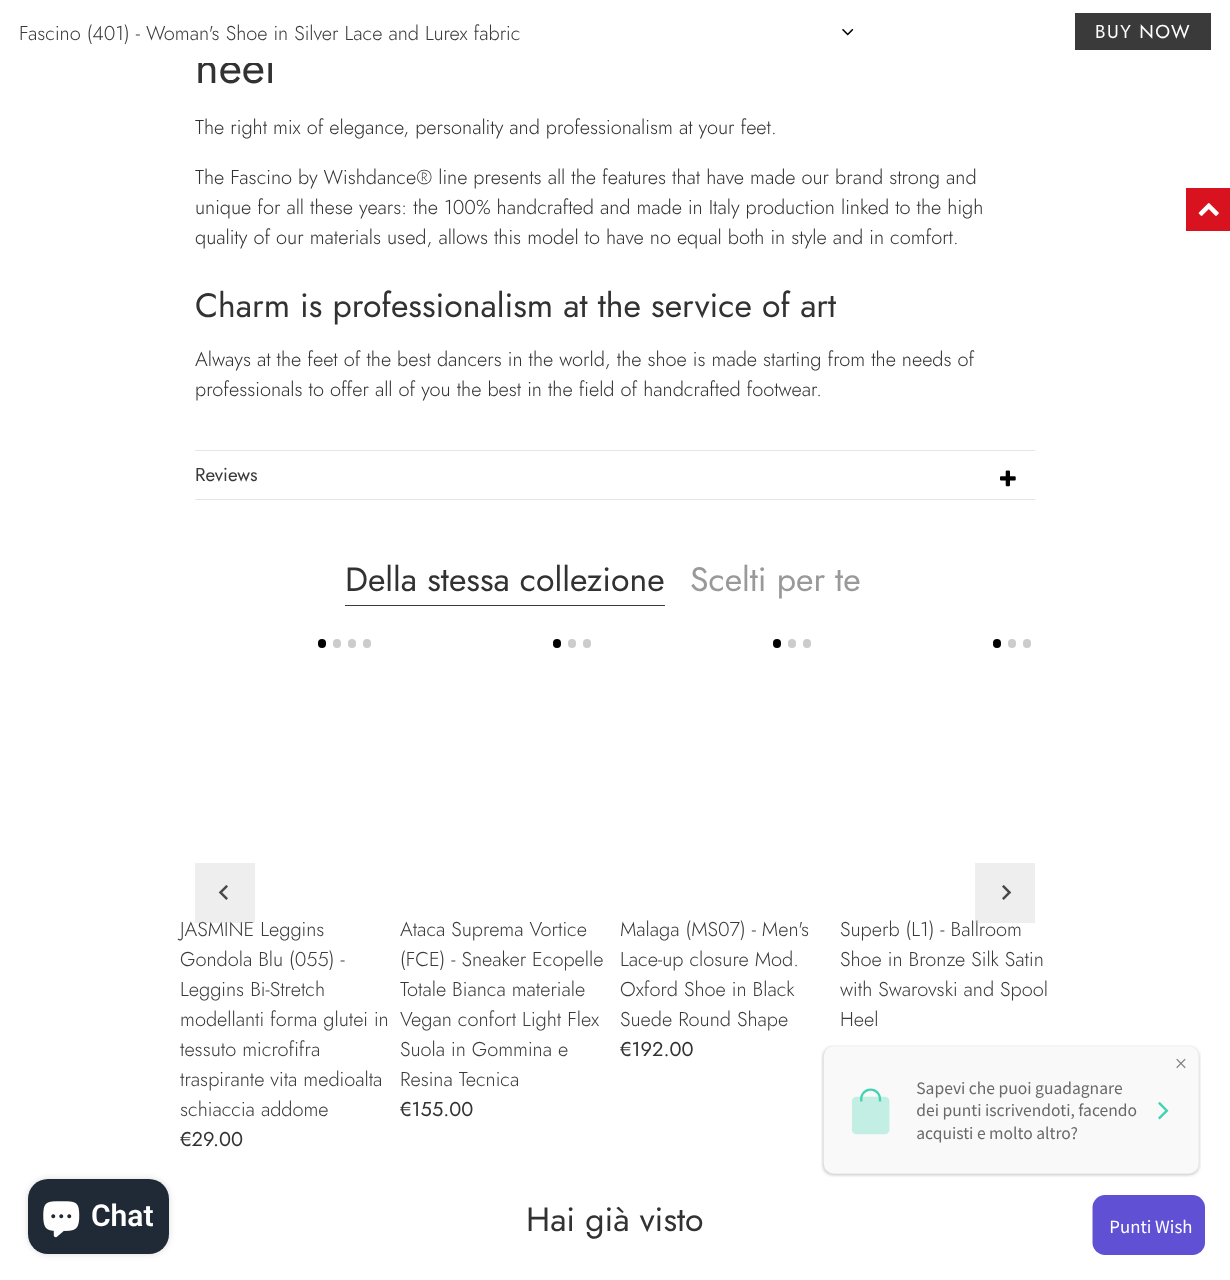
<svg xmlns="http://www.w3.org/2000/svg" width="1230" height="1280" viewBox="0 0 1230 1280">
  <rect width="100%" height="100%" fill="#fff"/>
  <image x="842" y="28" width="12" height="8" href="img/1.png"/>
  <path d="M1075 13h136v37H1075z" fill="#3a3a3a"/>
  <path d="M195 450h840v1H195z" fill="#e5e5e5"/>
  <path d="M195 499h840v1H195z" fill="#e5e5e5"/>
  <image x="1000" y="470" width="16" height="17" href="img/2.png"/>
  <path d="M345 605h320v1H345z" fill="#3a3a3a"/>
  <rect x="318" y="639" width="8" height="9" rx="4" fill="#000"/>
  <rect x="333" y="639" width="8" height="9" rx="4" fill="#ccc"/>
  <rect x="348" y="639" width="8" height="9" rx="4" fill="#ccc"/>
  <rect x="363" y="639" width="8" height="9" rx="4" fill="#ccc"/>
  <rect x="553" y="639" width="8" height="9" rx="4" fill="#000"/>
  <rect x="568" y="639" width="8" height="9" rx="4" fill="#ccc"/>
  <rect x="583" y="639" width="8" height="9" rx="4" fill="#ccc"/>
  <rect x="773" y="639" width="8" height="9" rx="4" fill="#000"/>
  <rect x="788" y="639" width="8" height="9" rx="4" fill="#ccc"/>
  <rect x="803" y="639" width="8" height="9" rx="4" fill="#ccc"/>
  <rect x="993" y="639" width="8" height="9" rx="4" fill="#000"/>
  <rect x="1008" y="639" width="8" height="9" rx="4" fill="#ccc"/>
  <rect x="1023" y="639" width="8" height="9" rx="4" fill="#ccc"/>
  <path d="M1186 188h44v43H1186z" fill="#d9121f"/>
  <image x="1198" y="203" width="21" height="13" href="img/5.png"/>
  <image x="821" y="1045" width="380" height="132" href="img/6.png"/>
  <rect x="28" y="1179" width="141" height="75" rx="20" fill="#00000026" filter="blur(3px)"/>
  <rect x="28" y="1179" width="141" height="75" rx="20" fill="#202a36"/>
  <image x="43" y="1201" width="37" height="37" href="img/7.png"/>
  <image x="1092" y="1195" width="113" height="60" href="img/8.png"/>
  <text x="19" y="40" font-family="Jost" font-size="20" font-weight="300" fill="#393a3b">Fascino (401) - Woman's Shoe in Silver Lace and Lurex fabric</text>
  <text x="1095" y="38" font-family="Jost" font-size="18.75" letter-spacing="1.5" fill="#fff">BUY NOW</text>
  <text x="195" y="83" font-family="Jost" font-size="45" fill="#333232">heel</text>
  <path d="M198 47h74v16H198z" fill="#fff"/>
  <g font-family="Jost" font-size="20" font-weight="300" fill="#333232">
    <text x="195" y="134">The right mix of elegance, personality and professionalism at your feet.</text>
    <text x="195" y="184">The Fascino by Wishdance® line presents all the features that have made our brand strong and</text>
    <text x="195" y="214">unique for all these years: the 100% handcrafted and made in Italy production linked to the high</text>
    <text x="195" y="244">quality of our materials used, allows this model to have no equal both in style and in comfort.</text>
  </g>
  <text x="195" y="317" font-family="Jost" font-size="33.75" fill="#333232">Charm is professionalism at the service of art</text>
  <g font-family="Jost" font-size="20" font-weight="300" fill="#333232">
    <text x="195" y="366">Always at the feet of the best dancers in the world, the shoe is made starting from the needs of</text>
    <text x="195" y="396">professionals to offer all of you the best in the field of handcrafted footwear.</text>
  </g>
  <text x="195" y="481" font-family="Jost" font-size="18.75" fill="#393a3b">Reviews</text>
  <text x="345" y="591" font-family="Jost" font-size="33.75" fill="#333232">Della stessa collezione</text>
  <text x="180" y="936" font-family="Jost" font-size="20" font-weight="300" fill="#393a3b">JASMINE Leggins</text>
  <path d="M195 863h60v60H195z" fill="#c6c6c64d"/>
  <image x="218" y="885" width="10" height="15" href="img/3.png"/>
  <g font-family="Jost" font-size="20" font-weight="300" fill="#393a3b">
    <text x="180" y="966">Gondola Blu (055) -</text>
    <text x="180" y="996">Leggins Bi-Stretch</text>
    <text x="180" y="1026">modellanti forma glutei in</text>
    <text x="180" y="1056">tessuto microfifra</text>
    <text x="180" y="1086">traspirante vita medioalta</text>
    <text x="180" y="1116">schiaccia addome</text>
  </g>
  <text x="180" y="1146" font-family="Jost" font-size="20" fill="#333232">€29.00</text>
  <g font-family="Jost" font-size="20" font-weight="300" fill="#393a3b">
    <text x="400" y="936">Ataca Suprema Vortice</text>
    <text x="400" y="966">(FCE) - Sneaker Ecopelle</text>
    <text x="400" y="996">Totale Bianca materiale</text>
    <text x="400" y="1026">Vegan confort Light Flex</text>
    <text x="400" y="1056">Suola in Gommina e</text>
    <text x="400" y="1086">Resina Tecnica</text>
  </g>
  <text x="400" y="1116" font-family="Jost" font-size="20" fill="#333232">€155.00</text>
  <g font-family="Jost" font-size="20" font-weight="300" fill="#393a3b">
    <text x="620" y="936">Malaga (MS07) - Men's</text>
    <text x="620" y="966">Lace-up closure Mod.</text>
    <text x="620" y="996">Oxford Shoe in Black</text>
    <text x="620" y="1026">Suede Round Shape</text>
  </g>
  <text x="620" y="1056" font-family="Jost" font-size="20" fill="#333232">€192.00</text>
  <text x="840" y="936" font-family="Jost" font-size="20" font-weight="300" fill="#393a3b">Superb (L1) - Ballroom</text>
  <path d="M975 863h60v60H975z" fill="#c6c6c64d"/>
  <image x="1002" y="885" width="10" height="15" href="img/4.png"/>
  <g font-family="Jost" font-size="20" font-weight="300" fill="#393a3b">
    <text x="840" y="966">Shoe in Bronze Silk Satin</text>
    <text x="840" y="996">with Swarovski and Spool</text>
    <text x="840" y="1026">Heel</text>
  </g>
  <text x="690" y="591" font-family="Jost" font-size="33.75" fill="#999">Scelti per te</text>
  <text x="526" y="1231" font-family="Jost" font-size="33.75" fill="#333232">Hai già visto</text>
  <text x="91" y="1226" font-family="Roboto" font-size="30" font-weight="600" fill="#fff">Chat</text>
</svg>
